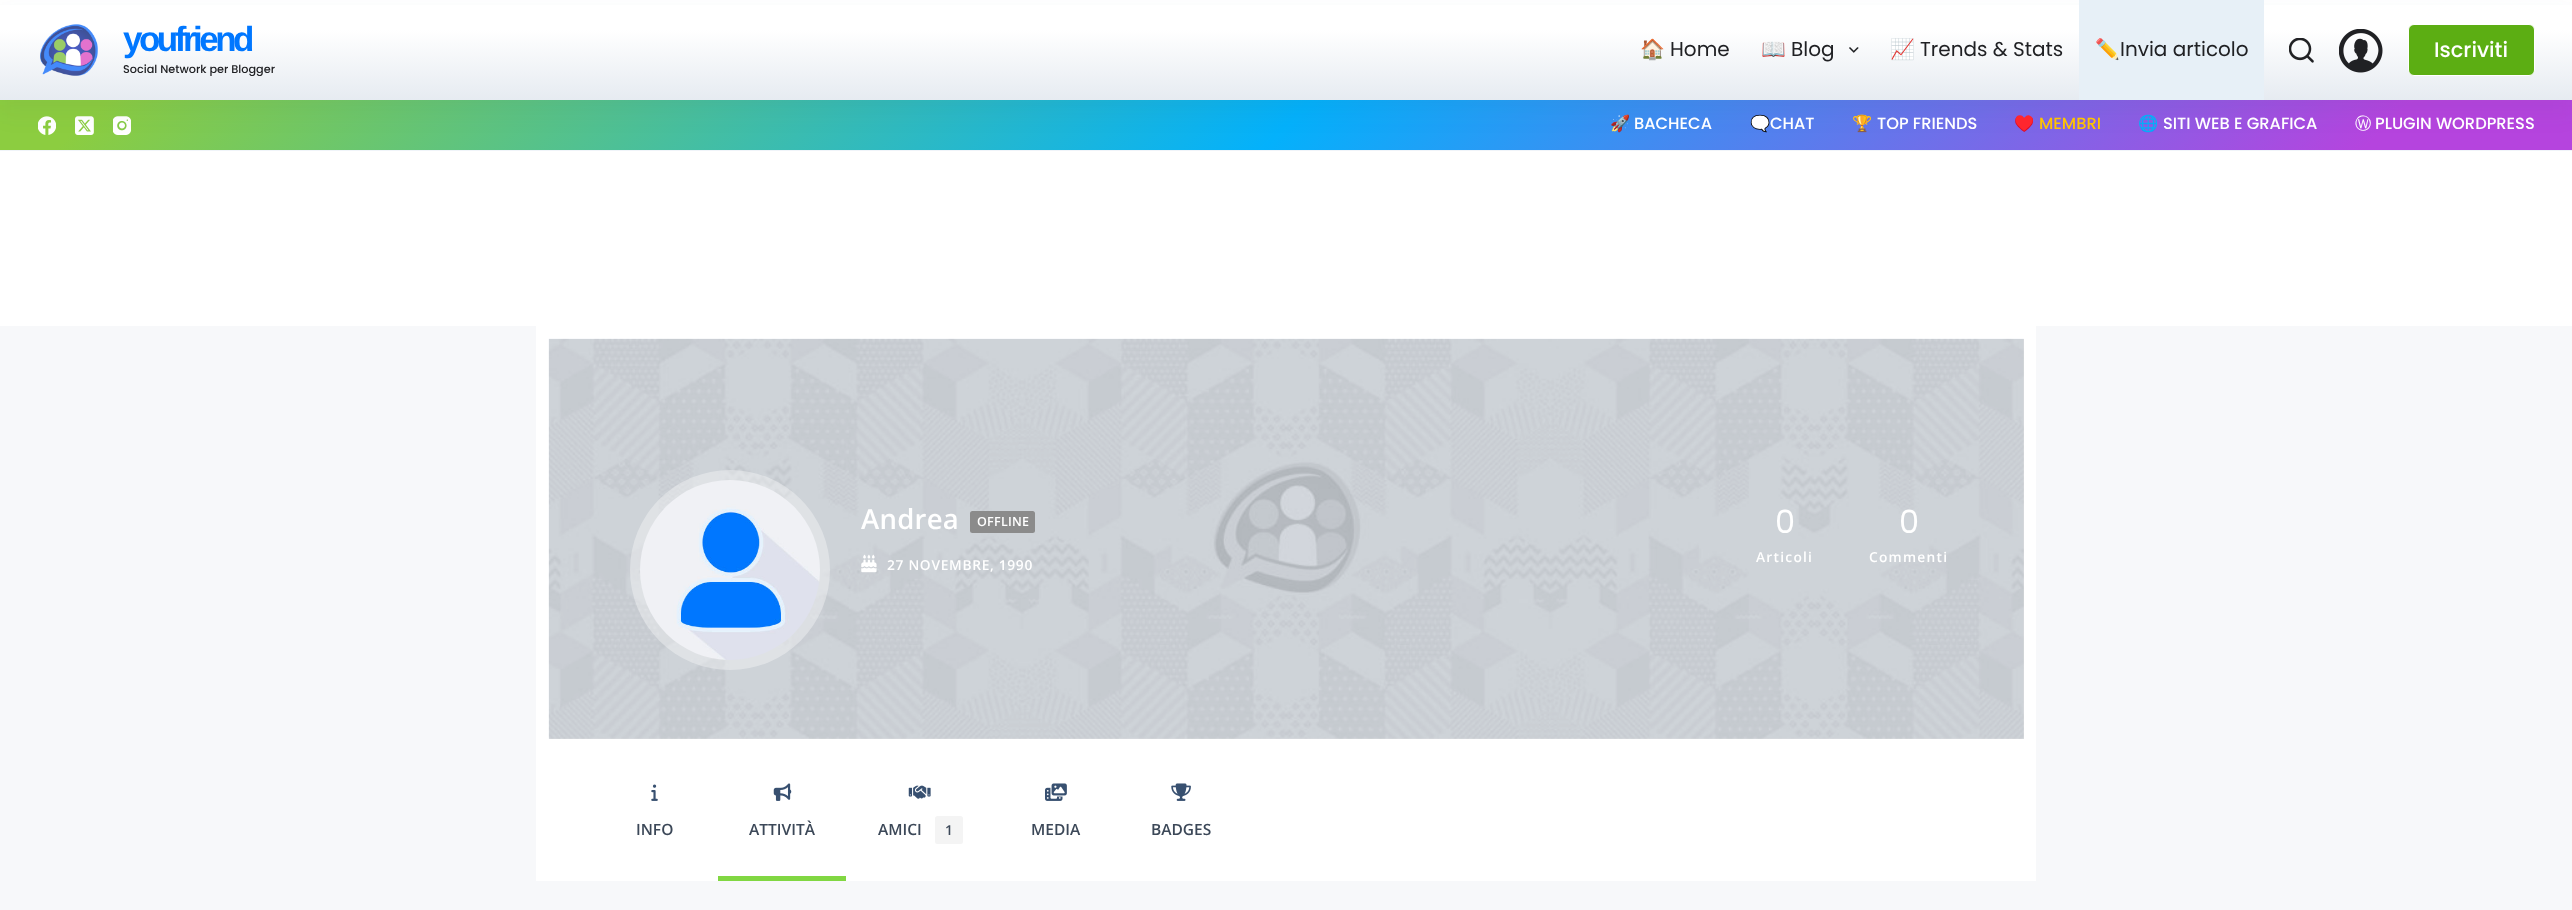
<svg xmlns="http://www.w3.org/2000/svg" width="2572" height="910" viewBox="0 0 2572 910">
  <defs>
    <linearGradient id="g1" gradientUnits="userSpaceOnUse" x1="631" y1="-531" x2="1942" y2="781"><stop offset="0.04" stop-color="#8ccd40"/><stop offset="0.5" stop-color="#04b1fb"/><stop offset="0.92" stop-color="#b544de"/></linearGradient>
    <linearGradient id="g2" gradientUnits="userSpaceOnUse" x1="1286" y1="100" x2="1286" y2="0"><stop offset="0" stop-color="#e6ebf1"/><stop offset="0.7" stop-color="#fff"/></linearGradient>
  </defs>
  <rect width="100%" height="100%" fill="#fff"/>
  <path d="M0 100h2572v50H0z" fill="url(#g1)"/>
  <path d="M0 150h2572v1H0z" fill="#f0f4f9"/>
  <image x="38" y="116" width="18" height="19" href="img/5.png"/>
  <image x="75" y="116" width="19" height="19" href="img/6.png"/>
  <image x="113" y="116" width="18" height="19" href="img/7.png"/>
  <path d="M0 13h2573v100H0z" fill="#2c3e500d" filter="blur(12.5px)"/>
  <path d="M0 5h2572v95H0z" fill="url(#g2)"/>
  <image x="40" y="24" width="58" height="52" href="img/1.png"/>
  <image x="1849" y="47" width="10" height="6" href="img/2.png"/>
  <path d="M2079 0h185v100H2079z" fill="#e7f0f7"/>
  <image x="2289" y="38" width="25" height="25" href="img/3.png"/>
  <image x="2339" y="29" width="44" height="44" href="img/4.png"/>
  <rect x="2408.5" y="24.5" width="126" height="51" rx="5.5" fill="#5cae13" stroke="#fff"/>
  <path d="M0 326h2572v584H0z" fill="#f7f8fa"/>
  <path d="M542.5 332.5h1487v412H542.5z" fill="none" stroke="#fff" stroke-width="13"/>
  <image x="548" y="338" width="1476" height="401" href="img/8.png"/>
  <path d="M549 339h1475v400H549z" fill="#0000001a"/>
  <circle cx="730" cy="570" r="100" fill="#ffffff59"/>
  <image x="640" y="480" width="180" height="180" href="img/9.png"/>
  <rect x="970" y="511" width="65" height="22" rx="2.5" fill="#8b8b8b"/>
  <image x="861" y="554" width="16" height="19" href="img/10.png"/>
  <path d="M536 751h1500v130H536z" fill="#fff"/>
  <image x="651" y="784" width="7" height="17" href="img/11.png"/>
  <path d="M718 876h128v5H718z" fill="#81d742"/>
  <image x="773" y="783" width="19" height="18" href="img/12.png"/>
  <image x="908" y="785" width="23" height="14" href="img/13.png"/>
  <rect x="935" y="816" width="28" height="28" rx="2.5" fill="#f4f4f4"/>
  <image x="1045" y="783" width="22" height="18" href="img/14.png"/>
  <image x="1171" y="783" width="20" height="18" href="img/15.png"/>
  <text x="123" y="51" font-family="Liberation Sans" font-size="35" font-weight="bold" letter-spacing="-3.5" fill="#07f">youfriend</text>
  <text x="123" y="73" font-family="Poppins" font-size="11.25" font-weight="500" fill="#202124">Social Network per Blogger</text>
  <text x="1640" y="56" font-family="Noto Color Emoji" font-size="20" fill="#202124">🏠</text>
  <text x="1670" y="56" font-family="Poppins" font-size="20" fill="#202124">Home</text>
  <text x="1761" y="56" font-family="Noto Color Emoji" font-size="20" fill="#202124">📖</text>
  <text x="1791" y="56" font-family="Poppins" font-size="20" fill="#202124">Blog</text>
  <text x="1890" y="56" font-family="Noto Color Emoji" font-size="20" fill="#202124">📈</text>
  <text x="1920" y="56" font-family="Poppins" font-size="20" fill="#202124">Trends &amp; Stats</text>
  <text x="2095" y="56" font-family="Noto Color Emoji" font-size="20" fill="#202124">✏️</text>
  <text x="2120" y="56" font-family="Poppins" font-size="20" fill="#202124">Invia articolo</text>
  <text x="2434" y="57" font-family="Poppins" font-size="21" font-weight="500" fill="#fff">Iscriviti</text>
  <text x="1610" y="129" font-family="Noto Color Emoji" font-size="16.25" fill="#fff">🚀</text>
  <text x="1634" y="129" font-family="Poppins" font-size="16.25" font-weight="500" fill="#fff">BACHECA</text>
  <text x="1750" y="129" font-family="Noto Color Emoji" font-size="16.25" fill="#fff">🗨️</text>
  <text x="1770" y="129" font-family="Poppins" font-size="16.25" font-weight="500" fill="#fff">CHAT</text>
  <text x="1852" y="129" font-family="Noto Color Emoji" font-size="16.25" fill="#fff">🏆</text>
  <text x="1877" y="129" font-family="Poppins" font-size="16.25" font-weight="500" fill="#fff">TOP FRIENDS</text>
  <text x="2014" y="129" font-family="Noto Color Emoji" font-size="16.25" fill="#ffc300">♥️</text>
  <text x="2039" y="129" font-family="Poppins" font-size="16.25" font-weight="500" fill="#ffc300">MEMBRI</text>
  <text x="2138" y="129" font-family="Noto Color Emoji" font-size="16.25" fill="#fff">🌐</text>
  <text x="2163" y="129" font-family="Poppins" font-size="16.25" font-weight="500" fill="#fff">SITI WEB E GRAFICA</text>
  <text x="2355" y="129" font-family="WenQuanYi Zen Hei" font-size="16.25" font-weight="500" fill="#fff">Ⓦ</text>
  <text x="2375" y="129" font-family="Poppins" font-size="16.25" font-weight="500" fill="#fff">PLUGIN WORDPRESS</text>
  <text x="861" y="529" font-family="Open Sans" font-size="27.5" font-weight="600" letter-spacing="0.25" fill="#fff">Andrea</text>
  <text x="977" y="526" font-family="Open Sans" font-size="12.5" font-weight="600" letter-spacing="0.25" fill="#fff">OFFLINE</text>
  <text x="887" y="570" font-family="Open Sans" font-size="13.75" font-weight="600" letter-spacing="0.7" fill="#fff">27 NOVEMBRE, 1990</text>
  <text x="1775" y="533" font-family="Poppins" font-size="32" fill="#fff">0</text>
  <text x="1756" y="562" font-family="Open Sans" font-size="13.75" font-weight="600" letter-spacing="1.25" fill="#fff">Articoli</text>
  <text x="1899" y="533" font-family="Poppins" font-size="32" fill="#fff">0</text>
  <text x="1869" y="562" font-family="Open Sans" font-size="13.75" font-weight="600" letter-spacing="1.25" fill="#fff">Commenti</text>
  <g font-family="Open Sans" font-size="15.5" font-weight="600" fill="#3c4858">
    <text x="636" y="835">INFO</text>
    <text x="749" y="835">ATTIVITÀ</text>
    <text x="878" y="835">AMICI</text>
  </g>
  <text x="945" y="835" font-family="Open Sans" font-size="13.75" font-weight="600" fill="#3c4858">1</text>
  <g font-family="Open Sans" font-size="15.5" font-weight="600" fill="#3c4858">
    <text x="1031" y="835">MEDIA</text>
    <text x="1151" y="835">BADGES</text>
  </g>
</svg>
